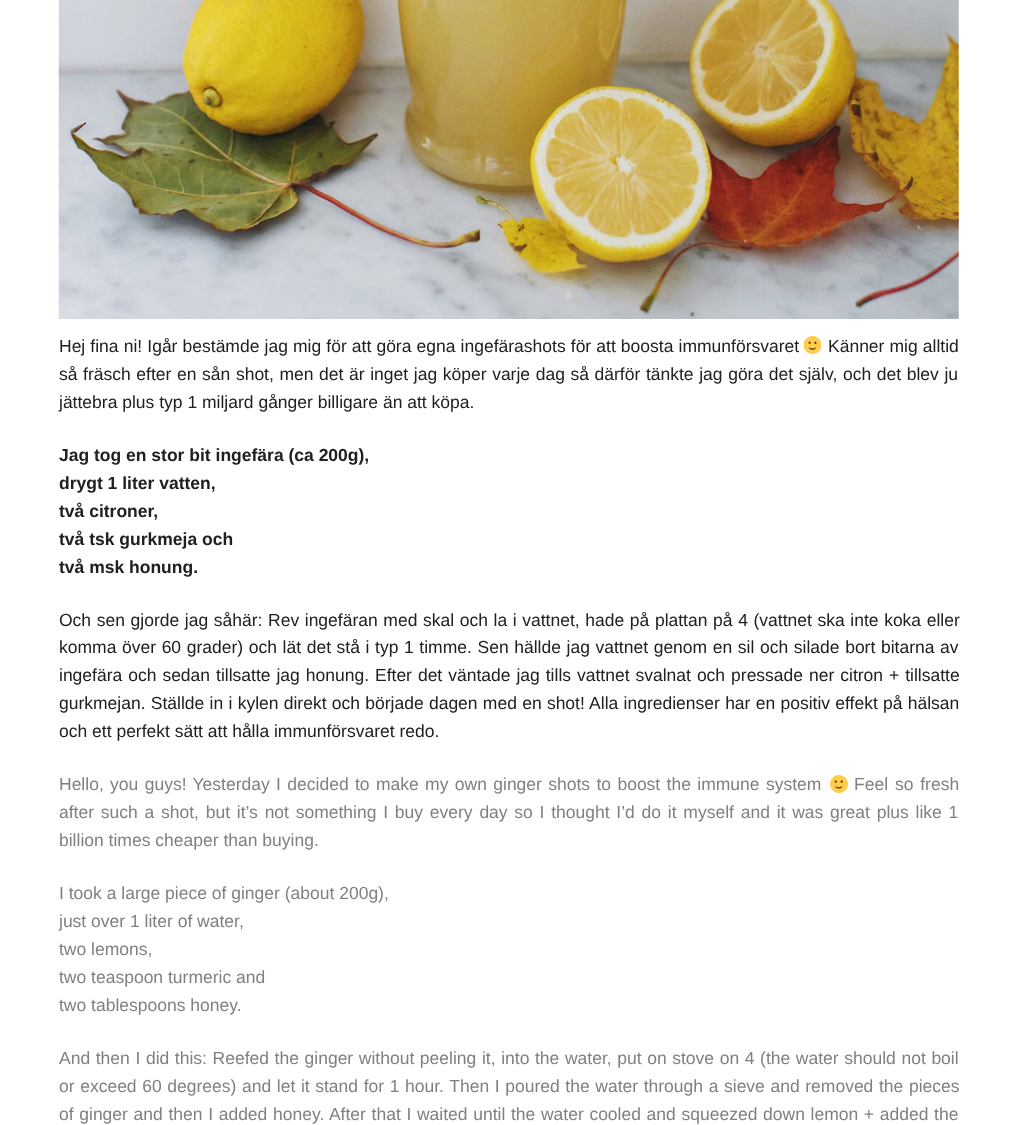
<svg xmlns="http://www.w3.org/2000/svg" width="1017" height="1125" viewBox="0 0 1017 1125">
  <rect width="100%" height="100%" fill="#fff"/>
  <image x="58" y="0" width="901" height="319" href="img/1.png"/>
  <image x="804" y="336" width="17" height="18" href="img/2.png"/>
  <image x="830" y="775" width="18" height="18" href="img/3.png"/>
  <g font-family="Liberation Sans" font-size="17.5" fill="#202020">
    <text x="59" y="352" word-spacing="0.25">Hej fina ni! Igår bestämde jag mig för att göra egna ingefärashots för att boosta immunförsvaret</text>
    <text x="828" y="352" word-spacing="0.25">Känner mig alltid</text>
    <text x="59" y="380" word-spacing="0.75">så fräsch efter en sån shot, men det är inget jag köper varje dag så därför tänkte jag göra det själv, och det blev ju</text>
    <text x="59" y="408">jättebra plus typ 1 miljard gånger billigare än att köpa.</text>
  </g>
  <g font-family="Liberation Sans" font-size="17.5" font-weight="bold" fill="#202020">
    <text x="59" y="461">Jag tog en stor bit ingefära (ca 200g),</text>
    <text x="59" y="489">drygt 1 liter vatten,</text>
    <text x="59" y="517">två citroner,</text>
    <text x="59" y="545">två tsk gurkmeja och</text>
    <text x="59" y="573">två msk honung.</text>
  </g>
  <g font-family="Liberation Sans" font-size="17.5" fill="#202020">
    <text x="59" y="626" word-spacing="0.75">Och sen gjorde jag såhär: Rev ingefäran med skal och la i vattnet, hade på plattan på 4 (vattnet ska inte koka eller</text>
    <text x="59" y="653" word-spacing="0.75">komma över 60 grader) och lät det stå i typ 1 timme. Sen hällde jag vattnet genom en sil och silade bort bitarna av</text>
    <text x="59" y="681" word-spacing="1.1">ingefära och sedan tillsatte jag honung. Efter det väntade jag tills vattnet svalnat och pressade ner citron + tillsatte</text>
    <text x="59" y="709" word-spacing="0.4">gurkmejan. Ställde in i kylen direkt och började dagen med en shot! Alla ingredienser har en positiv effekt på hälsan</text>
    <text x="59" y="737">och ett perfekt sätt att hålla immunförsvaret redo.</text>
  </g>
  <g font-family="Liberation Sans" font-size="17.5" fill="#808080">
    <text x="59" y="790" word-spacing="1.5">Hello, you guys! Yesterday I decided to make my own ginger shots to boost the immune system</text>
    <text x="854" y="790" word-spacing="2">Feel so fresh</text>
    <text x="59" y="818" word-spacing="1.9">after such a shot, but it’s not something I buy every day so I thought I’d do it myself and it was great plus like 1</text>
    <text x="59" y="846">billion times cheaper than buying.</text>
    <text x="59" y="899">I took a large piece of ginger (about 200g),</text>
    <text x="59" y="927">just over 1 liter of water,</text>
    <text x="59" y="955">two lemons,</text>
    <text x="59" y="983">two teaspoon turmeric and</text>
    <text x="59" y="1011">two tablespoons honey.</text>
    <text x="59" y="1064" word-spacing="0.75">And then I did this: Reefed the ginger without peeling it, into the water, put on stove on 4 (the water should not boil</text>
    <text x="59" y="1092" word-spacing="0.75">or exceed 60 degrees) and let it stand for 1 hour. Then I poured the water through a sieve and removed the pieces</text>
    <text x="59" y="1120" word-spacing="0.8">of ginger and then I added honey. After that I waited until the water cooled and squeezed down lemon + added the</text>
  </g>
</svg>
